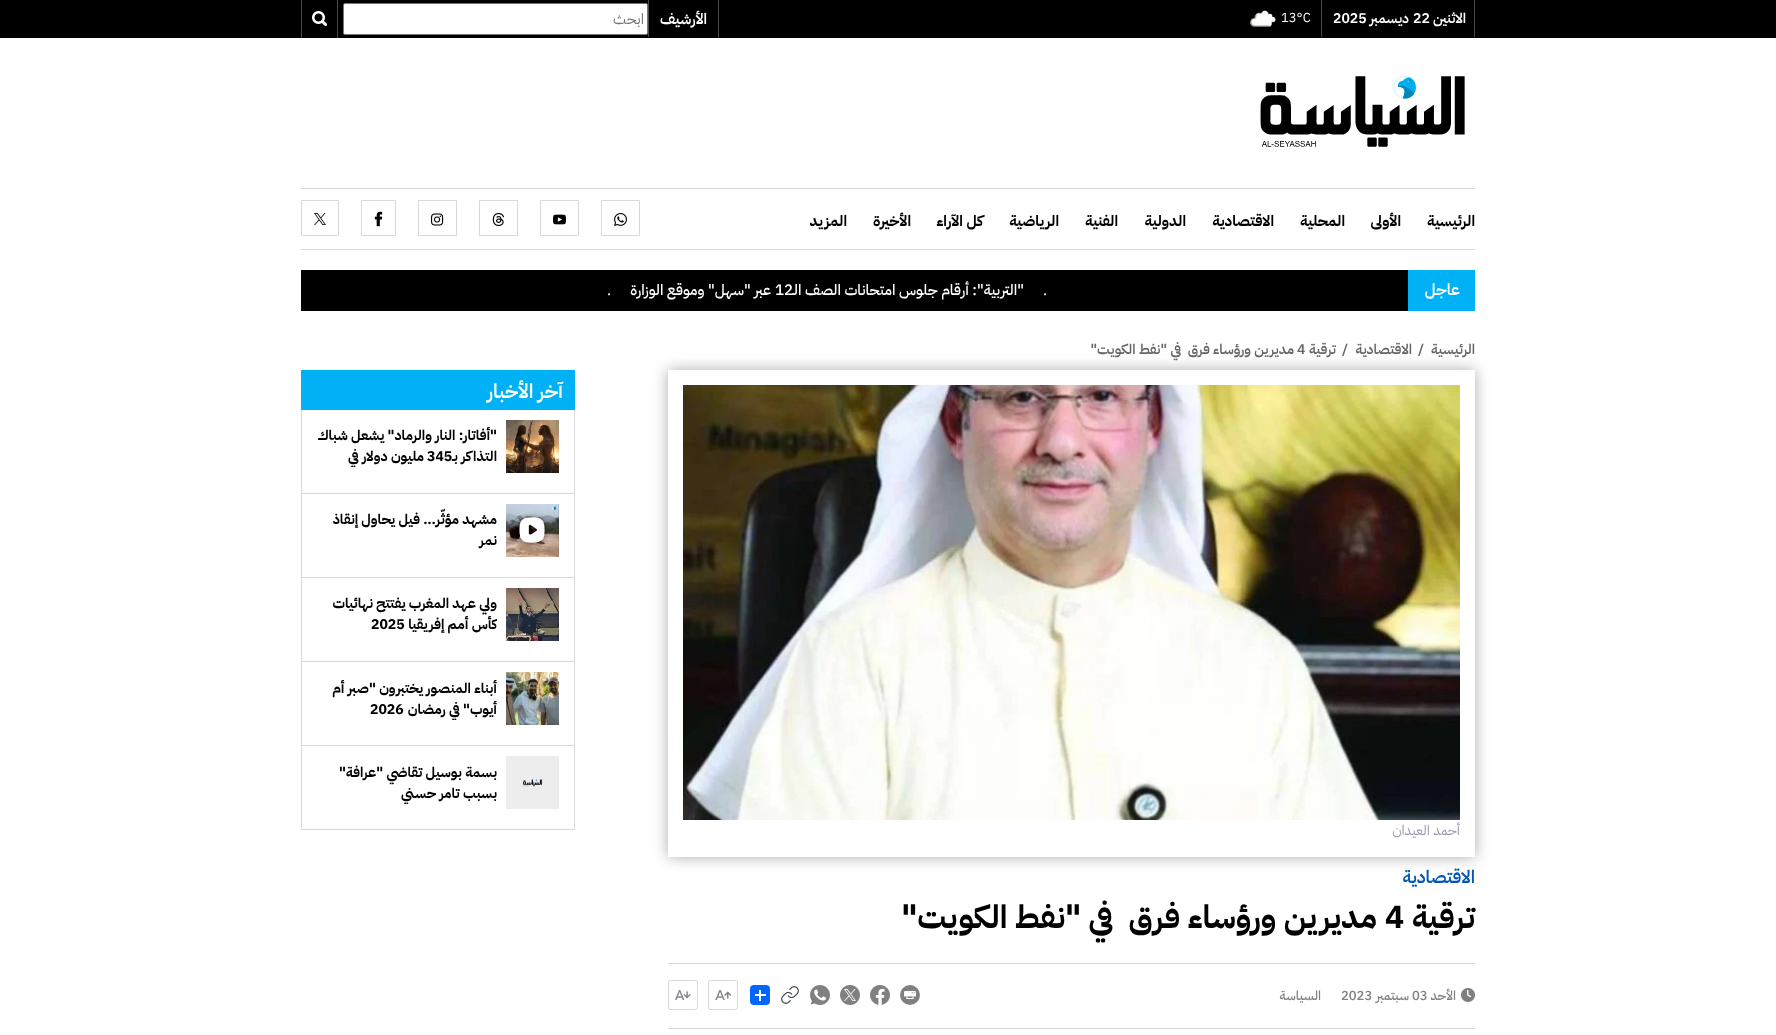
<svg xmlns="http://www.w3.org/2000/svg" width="1776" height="1035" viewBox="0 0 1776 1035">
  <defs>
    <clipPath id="clip1"><path d="M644 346H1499V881H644ZM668 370H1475V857H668Z" clip-rule="evenodd"/></clipPath>
    <clipPath id="clip2"><path d="M314 425h183v42H314z"/></clipPath>
    <clipPath id="clip3"><path d="M314 593h183v42H314z"/></clipPath>
    <clipPath id="clip4"><path d="M314 678h183v42H314z"/></clipPath>
    <clipPath id="clip5"><path d="M314 762h183v42H314z"/></clipPath>
  </defs>
  <rect width="100%" height="100%" fill="#fff"/>
  <path d="M0 0h1776v38H0z" fill="#000"/>
  <path d="M1474 0h1v37H1474z" fill="#4d4747"/>
  <path d="M1321 0h1v37H1321z" fill="#4d4747"/>
  <image x="1250" y="10" width="26" height="17" href="img/1.png"/>
  <path d="M718 0h1v38H718z" fill="#4d4747"/>
  <path d="M301 0h1v38H301z" fill="#4d4747"/>
  <path d="M648 0h1v37H648z" fill="#4d4747"/>
  <rect x="343.5" y="3.5" width="304" height="31" rx="1.5" fill="#fff" stroke="#767676"/>
  <path d="M337 0h1v38H337z" fill="#4d4747"/>
  <image x="312" y="11" width="15" height="15" href="img/2.png"/>
  <path d="M301 188h1174v1H301z" fill="#d9d9d9"/>
  <image x="1260" y="76" width="205" height="71" href="img/3.png"/>
  <path d="M301 249h1174v1H301z" fill="#d9d9d9"/>
  <path d="M601.5 200.5h38v35H601.5z" fill="none" stroke="#d9d9d9"/>
  <image x="614" y="213" width="13" height="13" href="img/4.png"/>
  <path d="M540.5 200.5h38v35H540.5z" fill="none" stroke="#d9d9d9"/>
  <image x="553" y="214" width="13" height="11" href="img/5.png"/>
  <path d="M479.5 200.5h38v35H479.5z" fill="none" stroke="#d9d9d9"/>
  <image x="492" y="213" width="13" height="13" href="img/6.png"/>
  <path d="M418.5 200.5h38v35H418.5z" fill="none" stroke="#d9d9d9"/>
  <image x="431" y="213" width="13" height="13" href="img/7.png"/>
  <path d="M361.5 200.5h34v35H361.5z" fill="none" stroke="#d9d9d9"/>
  <image x="374" y="211" width="9" height="16" href="img/8.png"/>
  <path d="M301.5 200.5h37v35H301.5z" fill="none" stroke="#d9d9d9"/>
  <image x="314" y="213" width="12" height="12" href="img/9.png"/>
  <path d="M301 270h1107v41H301z" fill="#000"/>
  <path d="M1408 270h67v41H1408z" fill="#00b1f5"/>
  <path d="M301 370h274v40H301z" fill="#00b1f5"/>
  <path d="M574 410h1v420H574z" fill="#d9d9d9"/>
  <path d="M301 493h274v1H301z" fill="#d9d9d9"/>
  <path d="M301 410h1v84H301z" fill="#d9d9d9"/>
  <image x="506" y="420" width="53" height="53" href="img/10.png"/>
  <path d="M301 577h274v1H301z" fill="#d9d9d9"/>
  <path d="M301 494h1v84H301z" fill="#d9d9d9"/>
  <image x="506" y="504" width="53" height="53" href="img/11.png"/>
  <image x="516" y="513" width="32" height="34" href="img/12.png"/>
  <path d="M301 661h274v1H301z" fill="#d9d9d9"/>
  <path d="M301 578h1v84H301z" fill="#d9d9d9"/>
  <image x="506" y="588" width="53" height="53" href="img/13.png"/>
  <path d="M301 745h274v1H301z" fill="#d9d9d9"/>
  <path d="M301 662h1v84H301z" fill="#d9d9d9"/>
  <image x="506" y="672" width="53" height="53" href="img/14.png"/>
  <path d="M301 829h274v1H301z" fill="#d9d9d9"/>
  <path d="M301 746h1v84H301z" fill="#d9d9d9"/>
  <image x="506" y="756" width="53" height="53" href="img/15.png"/>
  <g clip-path="url(#clip1)">
    <path d="M668 370h807v487H668z" fill="#ababab" filter="blur(7.5px)"/>
  </g>
  <image x="683" y="385" width="777" height="435" href="img/16.png"/>
  <path d="M668 963h807v1H668z" fill="#d9d9d9"/>
  <path d="M668 1028h807v1H668z" fill="#d9d9d9"/>
  <image x="1461" y="988" width="14" height="14" href="img/17.png"/>
  <circle cx="910" cy="995" r="10" fill="#808080"/>
  <image x="904" y="991" width="12" height="8" href="img/18.png"/>
  <image x="870" y="985" width="20" height="20" href="img/19.png"/>
  <image x="840" y="985" width="20" height="20" href="img/20.png"/>
  <image x="810" y="985" width="20" height="20" href="img/21.png"/>
  <image x="781" y="986" width="18" height="18" href="img/22.png"/>
  <rect x="750" y="985" width="20" height="20" rx="4" fill="#0166ff"/>
  <path d="M759 990h2v11H759z" fill="#fff"/>
  <path d="M755 994h11v2H755z" fill="#fff"/>
  <image x="708" y="980" width="30" height="30" href="img/23.png"/>
  <image x="668" y="980" width="30" height="30" href="img/24.png"/>
  <text x="1466" y="23" font-family="IBM Plex Sans Arabic" font-size="14" font-weight="600" direction="rtl" fill="#fff">الاثنين</text>
  <text x="1413" y="23" font-family="IBM Plex Sans Arabic" font-size="14" font-weight="600" fill="#fff">22</text>
  <text x="1409" y="23" font-family="IBM Plex Sans Arabic" font-size="14" font-weight="600" direction="rtl" fill="#fff">ديسمبر</text>
  <text x="1333" y="23" font-family="IBM Plex Sans Arabic" font-size="14" font-weight="600" fill="#fff">2025</text>
  <text x="1281" y="22" font-family="IBM Plex Sans Arabic" font-size="13" fill="#fff">13°C</text>
  <text x="707" y="24" font-family="IBM Plex Sans Arabic" font-size="15" font-weight="600" direction="rtl" fill="#fff">الأرشيف</text>
  <text x="644" y="24" font-family="IBM Plex Sans Arabic" font-size="15" direction="rtl" fill="#757575">ابحث</text>
  <g font-family="IBM Plex Sans Arabic" font-size="15" font-weight="bold" direction="rtl" fill="#000">
    <text x="1475" y="226">الرئيسية</text>
    <text x="1401" y="226">الأولى</text>
    <text x="1345" y="226">المحلية</text>
    <text x="1274" y="226">الاقتصادية</text>
    <text x="1186" y="226">الدولية</text>
    <text x="1118" y="226">الفنية</text>
    <text x="1059" y="226">الرياضية</text>
    <text x="983" y="226">كل الآراء</text>
    <text x="911" y="226">الأخيرة</text>
    <text x="847" y="226">المزيد</text>
  </g>
  <text x="1460" y="295" font-family="IBM Plex Sans Arabic" font-size="16" font-weight="600" direction="rtl" fill="#fff">عاجل</text>
  <text x="1043" y="295" font-family="IBM Plex Sans Arabic" font-size="15" fill="#fff">.</text>
  <text x="1024" y="295" font-family="IBM Plex Sans Arabic" font-size="15" font-weight="500" direction="rtl" fill="#fff">"التربية": أرقام جلوس امتحانات الصف الـ</text>
  <text x="775" y="295" font-family="IBM Plex Sans Arabic" font-size="15" font-weight="500" fill="#fff">12</text>
  <text x="771" y="295" font-family="IBM Plex Sans Arabic" font-size="15" font-weight="500" direction="rtl" fill="#fff">عبر "سهل" وموقع الوزارة</text>
  <text x="607" y="295" font-family="IBM Plex Sans Arabic" font-size="15" fill="#fff">.</text>
  <text x="1475" y="354" font-family="IBM Plex Sans Arabic" font-size="14" font-weight="600" direction="rtl" fill="#666">الرئيسية</text>
  <text x="1418" y="354" font-family="IBM Plex Sans Arabic" font-size="14" font-weight="600" fill="#666">/</text>
  <text x="1412" y="354" font-family="IBM Plex Sans Arabic" font-size="14" font-weight="600" direction="rtl" fill="#666">الاقتصادية</text>
  <text x="1342" y="354" font-family="IBM Plex Sans Arabic" font-size="14" font-weight="600" fill="#666">/</text>
  <text x="1336" y="354" font-family="IBM Plex Sans Arabic" font-size="14" font-weight="600" direction="rtl" fill="#666">ترقية</text>
  <text x="1297" y="354" font-family="IBM Plex Sans Arabic" font-size="14" font-weight="600" fill="#666">4</text>
  <text x="1294" y="354" font-family="IBM Plex Sans Arabic" font-size="14" font-weight="600" direction="rtl" fill="#666" xml:space="preserve">مديرين ورؤساء فرق  في "نفط الكويت"</text>
  <text x="563" y="398" font-family="IBM Plex Sans Arabic" font-size="20" font-weight="600" direction="rtl" fill="#fff">آخر الأخبار</text>
  <text x="497" y="440" font-family="IBM Plex Sans Arabic" font-size="14" font-weight="bold" direction="rtl" fill="#000">"أفاتار: النار والرماد" يشعل شباك</text>
  <text x="427" y="461" font-family="IBM Plex Sans Arabic" font-size="14" font-weight="bold" fill="#000">345</text>
  <text x="497" y="461" font-family="IBM Plex Sans Arabic" font-size="14" font-weight="bold" direction="rtl" fill="#000">التذاكر بـ</text>
  <g clip-path="url(#clip2)">
    <text x="424" y="461" font-family="IBM Plex Sans Arabic" font-size="14" font-weight="bold" direction="rtl" fill="#000">مليون دولار في</text>
  </g>
  <g font-family="IBM Plex Sans Arabic" font-size="14" font-weight="bold" direction="rtl" fill="#000">
    <text x="497" y="524">مشهد مؤثّر… فيل يحاول إنقاذ</text>
    <text x="497" y="545">نمر</text>
    <text x="497" y="608">ولي عهد المغرب يفتتح نهائيات</text>
  </g>
  <g clip-path="url(#clip3)">
    <text x="497" y="629" font-family="IBM Plex Sans Arabic" font-size="14" font-weight="bold" direction="rtl" fill="#000">كأس أمم إفريقيا</text>
  </g>
  <text x="371" y="629" font-family="IBM Plex Sans Arabic" font-size="14" font-weight="bold" fill="#000">2025</text>
  <g font-family="IBM Plex Sans Arabic" font-size="14" font-weight="bold" direction="rtl" fill="#000">
    <text x="497" y="693">أبناء المنصور</text>
    <text x="423" y="693">يختبرون "صبر أم</text>
    <text x="497" y="714">أيوب"</text>
  </g>
  <g clip-path="url(#clip4)">
    <text x="460" y="714" font-family="IBM Plex Sans Arabic" font-size="14" font-weight="bold" direction="rtl" fill="#000">في رمضان</text>
  </g>
  <text x="370" y="714" font-family="IBM Plex Sans Arabic" font-size="14" font-weight="bold" fill="#000">2026</text>
  <text x="497" y="777" font-family="IBM Plex Sans Arabic" font-size="14" font-weight="bold" direction="rtl" fill="#000">بسمة بوسيل تقاضي "عرافة"</text>
  <g clip-path="url(#clip5)">
    <text x="497" y="798" font-family="IBM Plex Sans Arabic" font-size="14" font-weight="bold" direction="rtl" fill="#000">بسبب تامر حسني</text>
  </g>
  <text x="1460" y="835" font-family="IBM Plex Sans Arabic" font-size="14" direction="rtl" fill="#9999b2">أحمد العيدان</text>
  <text x="1475" y="883" font-family="IBM Plex Sans Arabic" font-size="18" font-weight="600" direction="rtl" fill="#0056b3">الاقتصادية</text>
  <text x="1475" y="928" font-family="IBM Plex Sans Arabic" font-size="32" font-weight="bold" direction="rtl" fill="#000">ترقية</text>
  <text x="1385" y="928" font-family="IBM Plex Sans Arabic" font-size="32" font-weight="bold" fill="#000">4</text>
  <text x="1377" y="928" font-family="IBM Plex Sans Arabic" font-size="32" font-weight="bold" direction="rtl" fill="#000" xml:space="preserve">مديرين ورؤساء فرق  في "نفط الكويت"</text>
  <text x="1456" y="1000" font-family="IBM Plex Sans Arabic" font-size="13" font-weight="500" direction="rtl" fill="#808080">الأحد</text>
  <text x="1412" y="1000" font-family="IBM Plex Sans Arabic" font-size="13" font-weight="500" fill="#808080">03</text>
  <text x="1409" y="1000" font-family="IBM Plex Sans Arabic" font-size="13" font-weight="500" direction="rtl" fill="#808080">سبتمبر</text>
  <text x="1341" y="1000" font-family="IBM Plex Sans Arabic" font-size="13" font-weight="500" fill="#808080">2023</text>
  <text x="1321" y="1000" font-family="IBM Plex Sans Arabic" font-size="13" font-weight="500" direction="rtl" fill="#808080">السياسة</text>
</svg>
